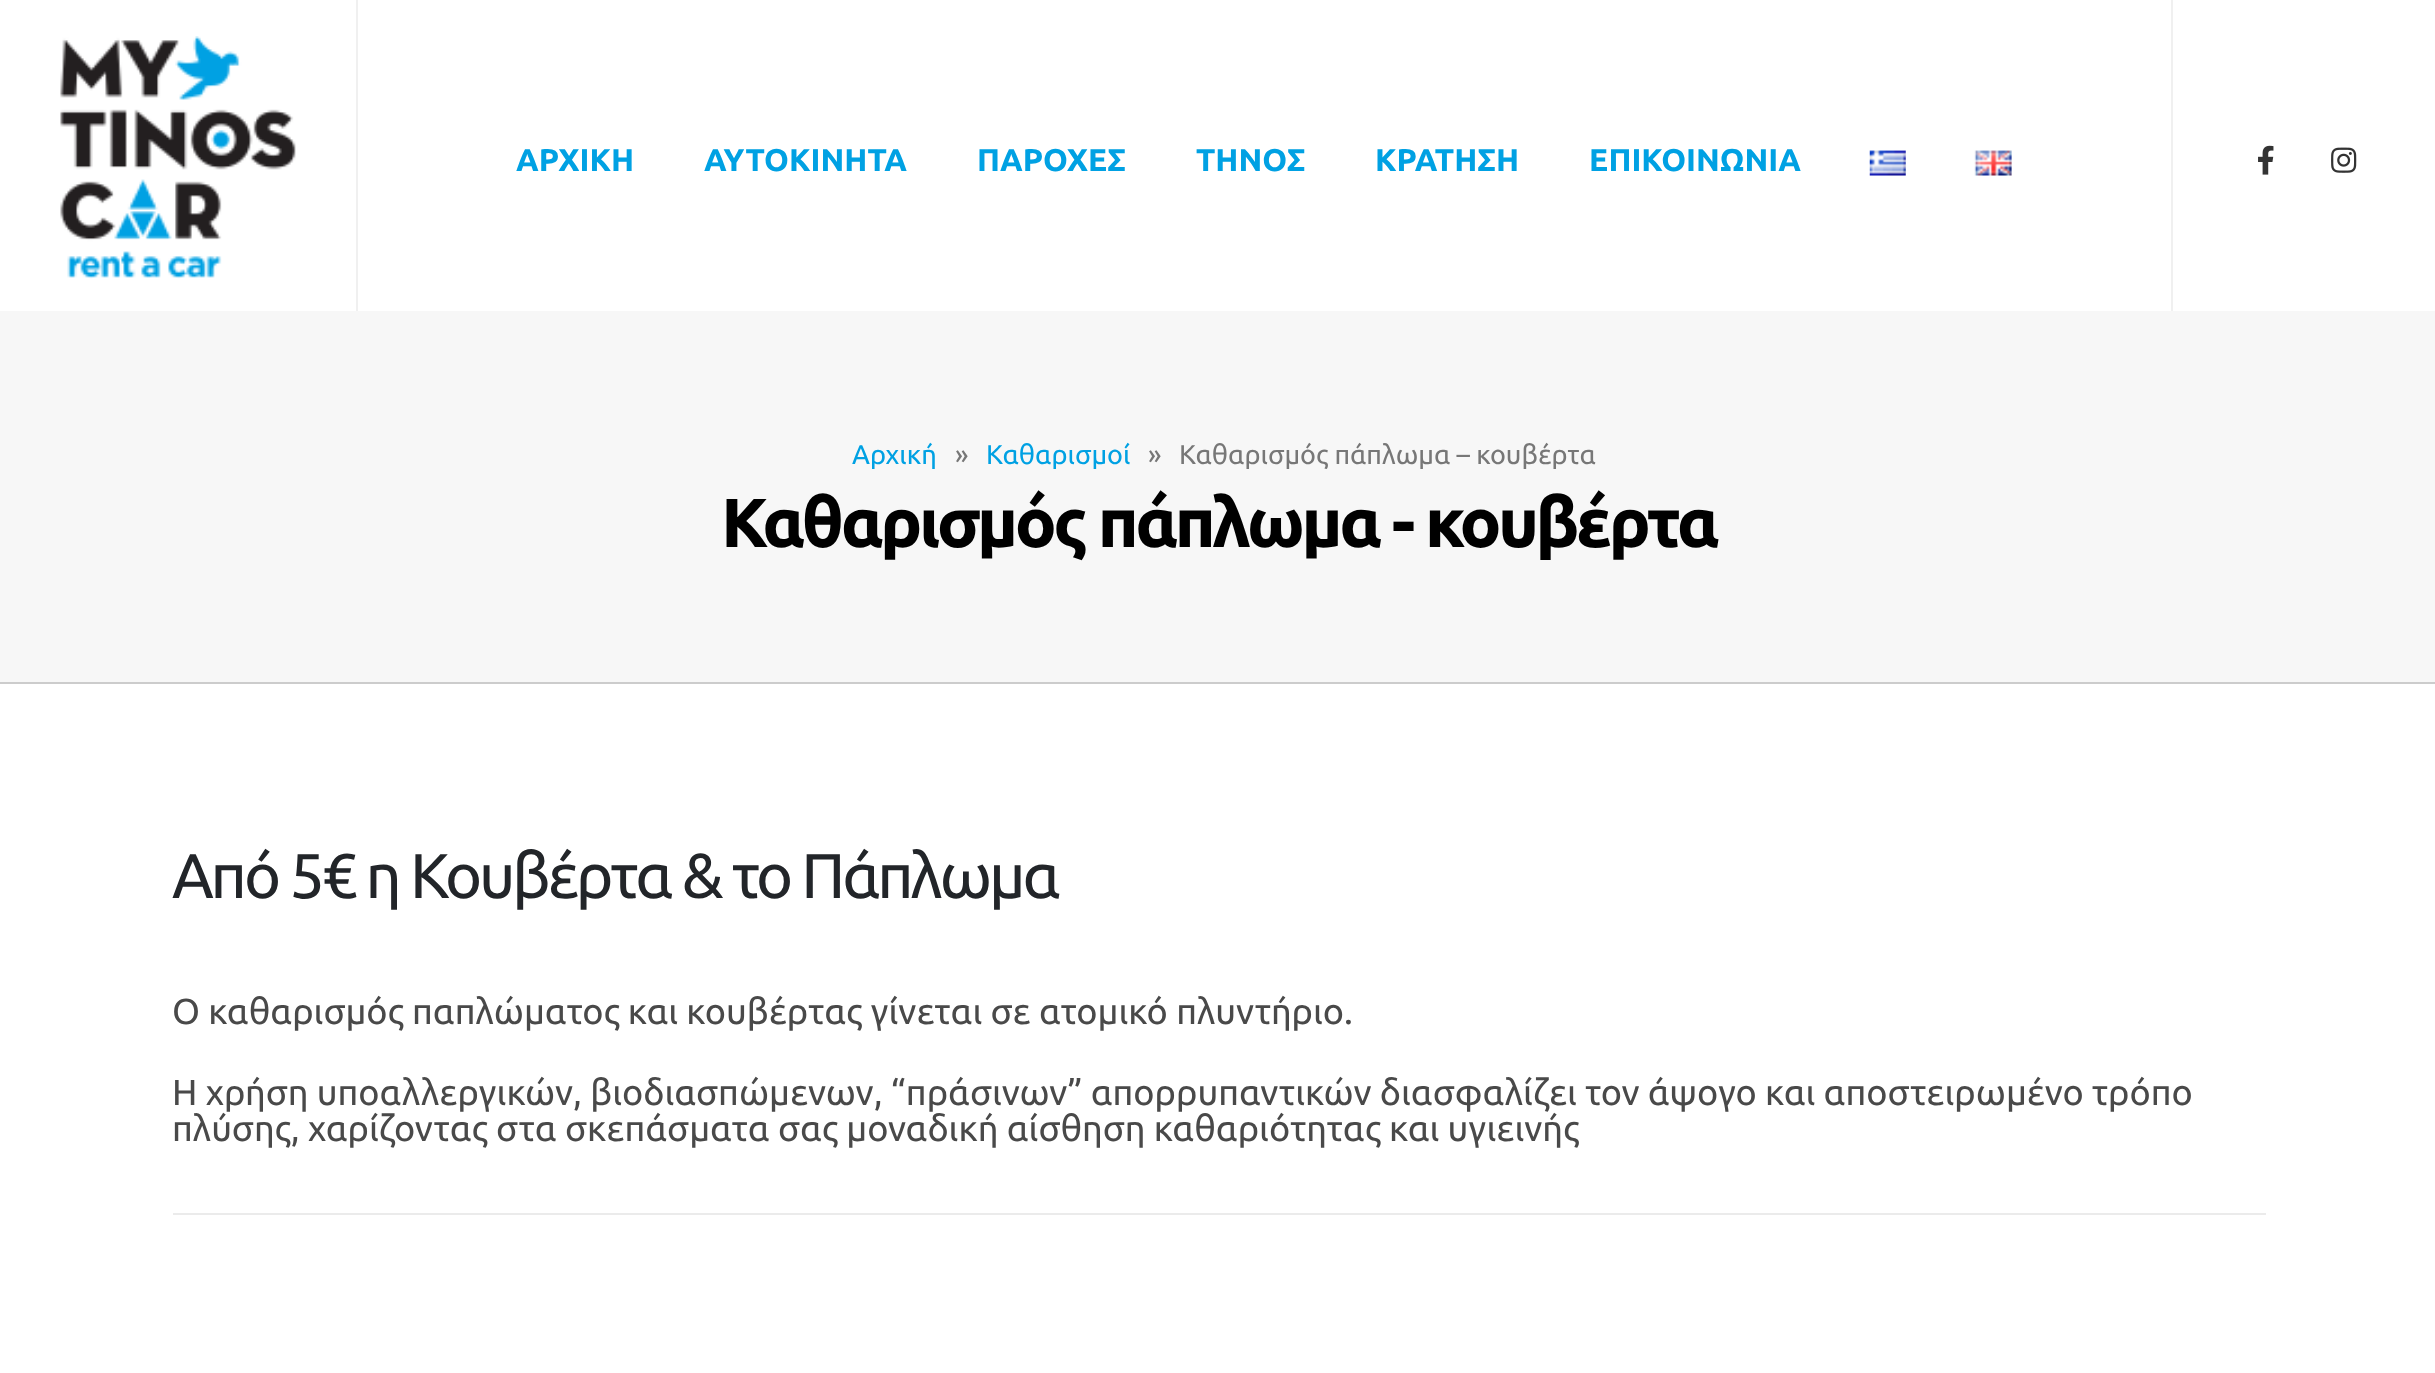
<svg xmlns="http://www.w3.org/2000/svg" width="2435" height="1373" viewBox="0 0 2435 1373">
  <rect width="100%" height="100%" fill="#fff"/>
  <path d="M356 0h2v311H356z" fill="#f0f0f0"/>
  <image x="60" y="36" width="236" height="243" href="img/1.png"/>
  <image x="1869" y="150" width="37" height="26" href="img/2.png"/>
  <image x="1974" y="150" width="38" height="26" href="img/3.png"/>
  <path d="M2171 0h2v311H2171z" fill="#f0f0f0"/>
  <image x="2258" y="145" width="16" height="30" href="img/4.png"/>
  <image x="2331" y="147" width="26" height="26" href="img/5.png"/>
  <path d="M0 311h2435v371H0z" fill="#f7f7f7"/>
  <path d="M0 682h2435v2H0z" fill="#ccc"/>
  <path d="M173 1213h2093v2H173z" fill="#ebebeb"/>
  <g font-family="Ubuntu" font-size="31.5" font-weight="bold" fill="#00a1e3">
    <text x="516" y="171">ΑΡΧΙΚΗ</text>
    <text x="704" y="171">ΑΥΤΟΚΙΝΗΤΑ</text>
    <text x="977" y="171">ΠΑΡΟΧΕΣ</text>
    <text x="1196" y="171">ΤΗΝΟΣ</text>
    <text x="1375" y="171">ΚΡΑΤΗΣΗ</text>
    <text x="1589" y="171">ΕΠΙΚΟΙΝΩΝΙΑ</text>
  </g>
  <text x="852" y="464" font-family="Ubuntu" font-size="27" fill="#00a1e3">Αρχική</text>
  <text x="955" y="464" font-family="Ubuntu" font-size="27" fill="#777">»</text>
  <text x="986" y="464" font-family="Ubuntu" font-size="27" fill="#00a1e3">Καθαρισμοί</text>
  <g font-family="Ubuntu" font-size="27" fill="#777">
    <text x="1148" y="464">»</text>
    <text x="1179" y="464">Καθαρισμός πάπλωμα – κουβέρτα</text>
  </g>
  <text x="721" y="547" font-family="Ubuntu" font-size="69.25" font-weight="bold" letter-spacing="-3.45" fill="#000">Καθαρισμός πάπλωμα - κουβέρτα</text>
  <text x="172" y="898" font-family="Ubuntu" font-size="63" letter-spacing="-3.15" fill="#222529">Από 5€ η Κουβέρτα &amp; το Πάπλωμα</text>
  <g font-family="Ubuntu" font-size="36" fill="#494949">
    <text x="172" y="1024">Ο καθαρισμός παπλώματος και κουβέρτας γίνεται σε ατομικό πλυντήριο.</text>
    <text x="172" y="1105">Η χρήση υποαλλεργικών, βιοδιασπώμενων, “πράσινων” απορρυπαντικών διασφαλίζει τον άψογο και αποστειρωμένο τρόπο</text>
    <text x="172" y="1141">πλύσης, χαρίζοντας στα σκεπάσματα σας μοναδική αίσθηση καθαριότητας και υγιεινής</text>
  </g>
</svg>
